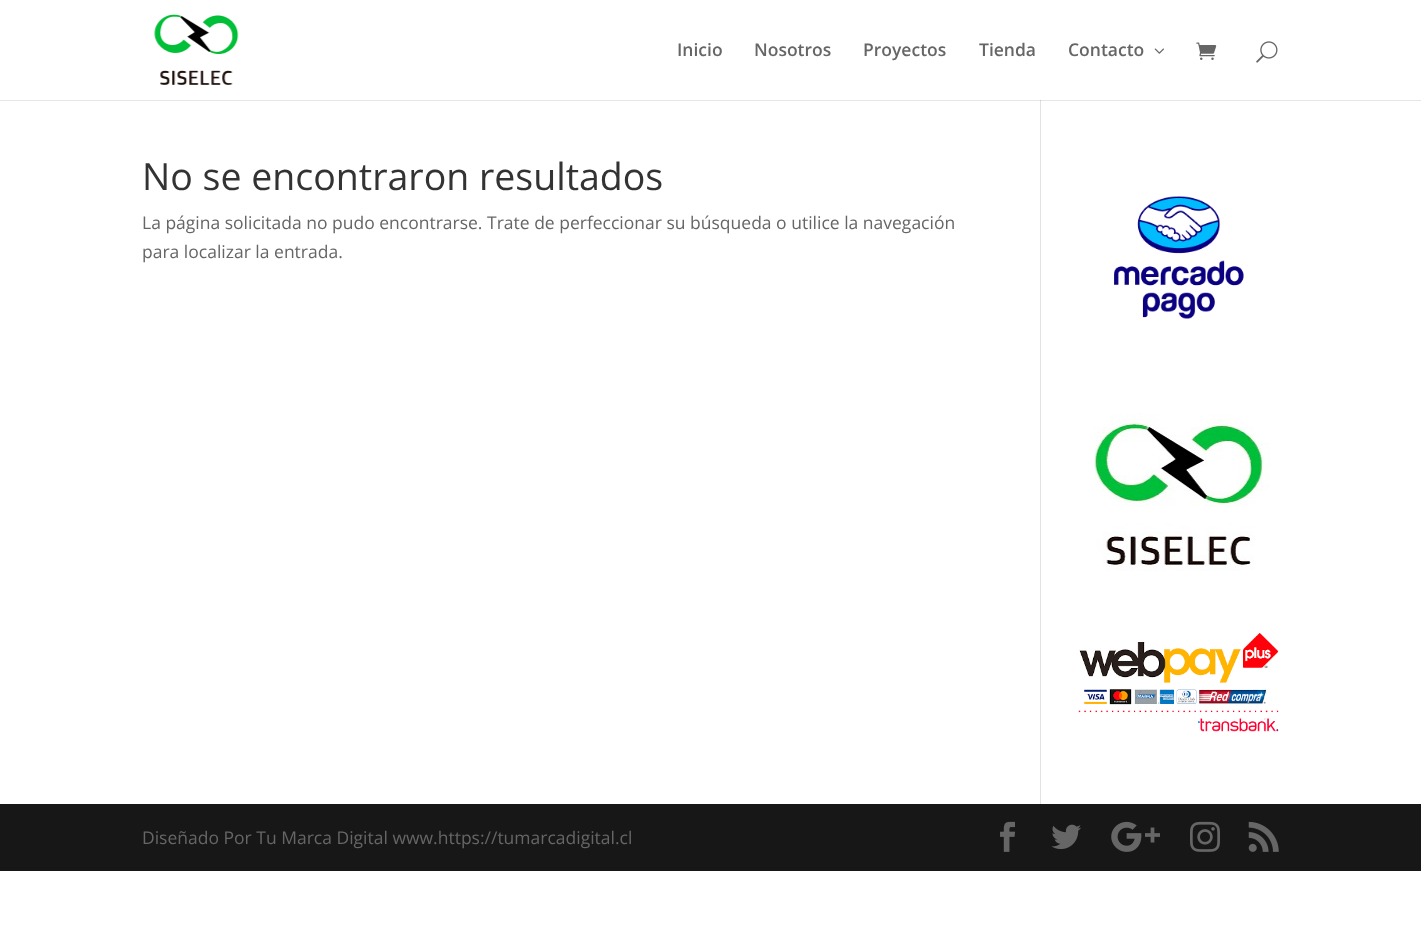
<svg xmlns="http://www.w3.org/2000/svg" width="1421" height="935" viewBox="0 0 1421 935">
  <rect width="100%" height="100%" fill="#fff"/>
  <path d="M0 100h1421v1H0z" fill="#e6e6e6"/>
  <image x="154" y="14" width="85" height="71" href="img/1.png"/>
  <image x="1154" y="48" width="10" height="6" href="img/2.png"/>
  <image x="1196" y="42" width="21" height="18" href="img/3.png"/>
  <image x="1256" y="41" width="22" height="22" href="img/4.png"/>
  <image x="1114" y="196" width="130" height="123" href="img/5.png"/>
  <image x="1094" y="413" width="176" height="158" href="img/6.png"/>
  <image x="1078" y="633" width="201" height="99" href="img/7.png"/>
  <path d="M1040 101h1v703H1040z" fill="#e2e2e2"/>
  <path d="M1040 100h1v1H1040z" fill="#cbcbcb"/>
  <path d="M0 804h1421v67H0z" fill="#171717"/>
  <image x="1000" y="821" width="15" height="31" href="img/8.png"/>
  <image x="1051" y="824" width="30" height="26" href="img/9.png"/>
  <image x="1111" y="821" width="49" height="31" href="img/10.png"/>
  <image x="1190" y="821" width="30" height="31" href="img/11.png"/>
  <image x="1248" y="821" width="31" height="31" href="img/12.png"/>
  <g font-family="Open Sans" font-size="17.5" font-weight="600" fill="#666">
    <text x="677" y="56">Inicio</text>
    <text x="754" y="56">Nosotros</text>
    <text x="863" y="56">Proyectos</text>
    <text x="979" y="56">Tienda</text>
    <text x="1068" y="56">Contacto</text>
  </g>
  <text x="142" y="190" font-family="Open Sans" font-size="37.5" fill="#333">No se encontraron resultados</text>
  <g font-family="Open Sans" font-size="17.5" fill="#666">
    <text x="142" y="229">La página solicitada no pudo encontrarse. Trate de perfeccionar su búsqueda o utilice la navegación</text>
    <text x="142" y="258">para localizar la entrada.</text>
    <text x="142" y="844">Diseñado Por Tu Marca Digital www.https://tumarcadigital.cl</text>
  </g>
</svg>
